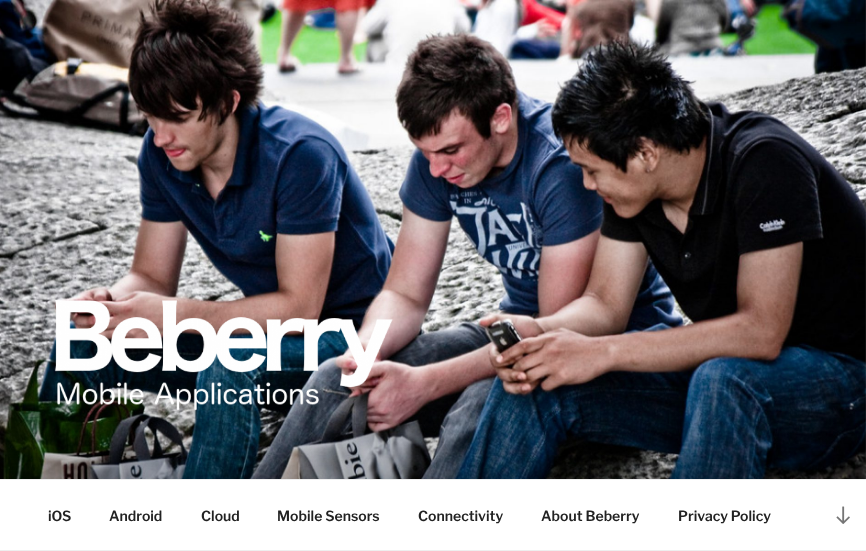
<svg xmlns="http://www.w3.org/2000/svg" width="866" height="551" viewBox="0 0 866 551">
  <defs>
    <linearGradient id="g1" gradientUnits="userSpaceOnUse" x1="433" y1="369" x2="433" y2="551"><stop offset="0" stop-color="#000" stop-opacity="0"/><stop offset="0.75" stop-color="#000" stop-opacity="0.3"/><stop offset="1" stop-color="#000" stop-opacity="0.3"/></linearGradient>
  </defs>
  <rect width="100%" height="100%" fill="#fff"/>
  <image x="0" y="0" width="866" height="479" href="img/1.png"/>
  <path d="M0 379h866v100H0z" fill="url(#g1)"/>
  <image x="54" y="299" width="339" height="111" href="img/2.png"/>
  <path d="M0 479h866v1H0z" fill="#eee"/>
  <path d="M0 550h866v1H0z" fill="#eee"/>
  <image x="836" y="506" width="14" height="18" href="img/3.png"/>
  <g font-family="Libre Franklin" font-size="14" font-weight="600" fill="#222">
    <text x="48" y="521">iOS</text>
    <text x="109" y="521">Android</text>
    <text x="201" y="521">Cloud</text>
    <text x="277" y="521">Mobile Sensors</text>
    <text x="418" y="521">Connectivity</text>
    <text x="541" y="521">About Beberry</text>
    <text x="678" y="521">Privacy Policy</text>
  </g>
</svg>
